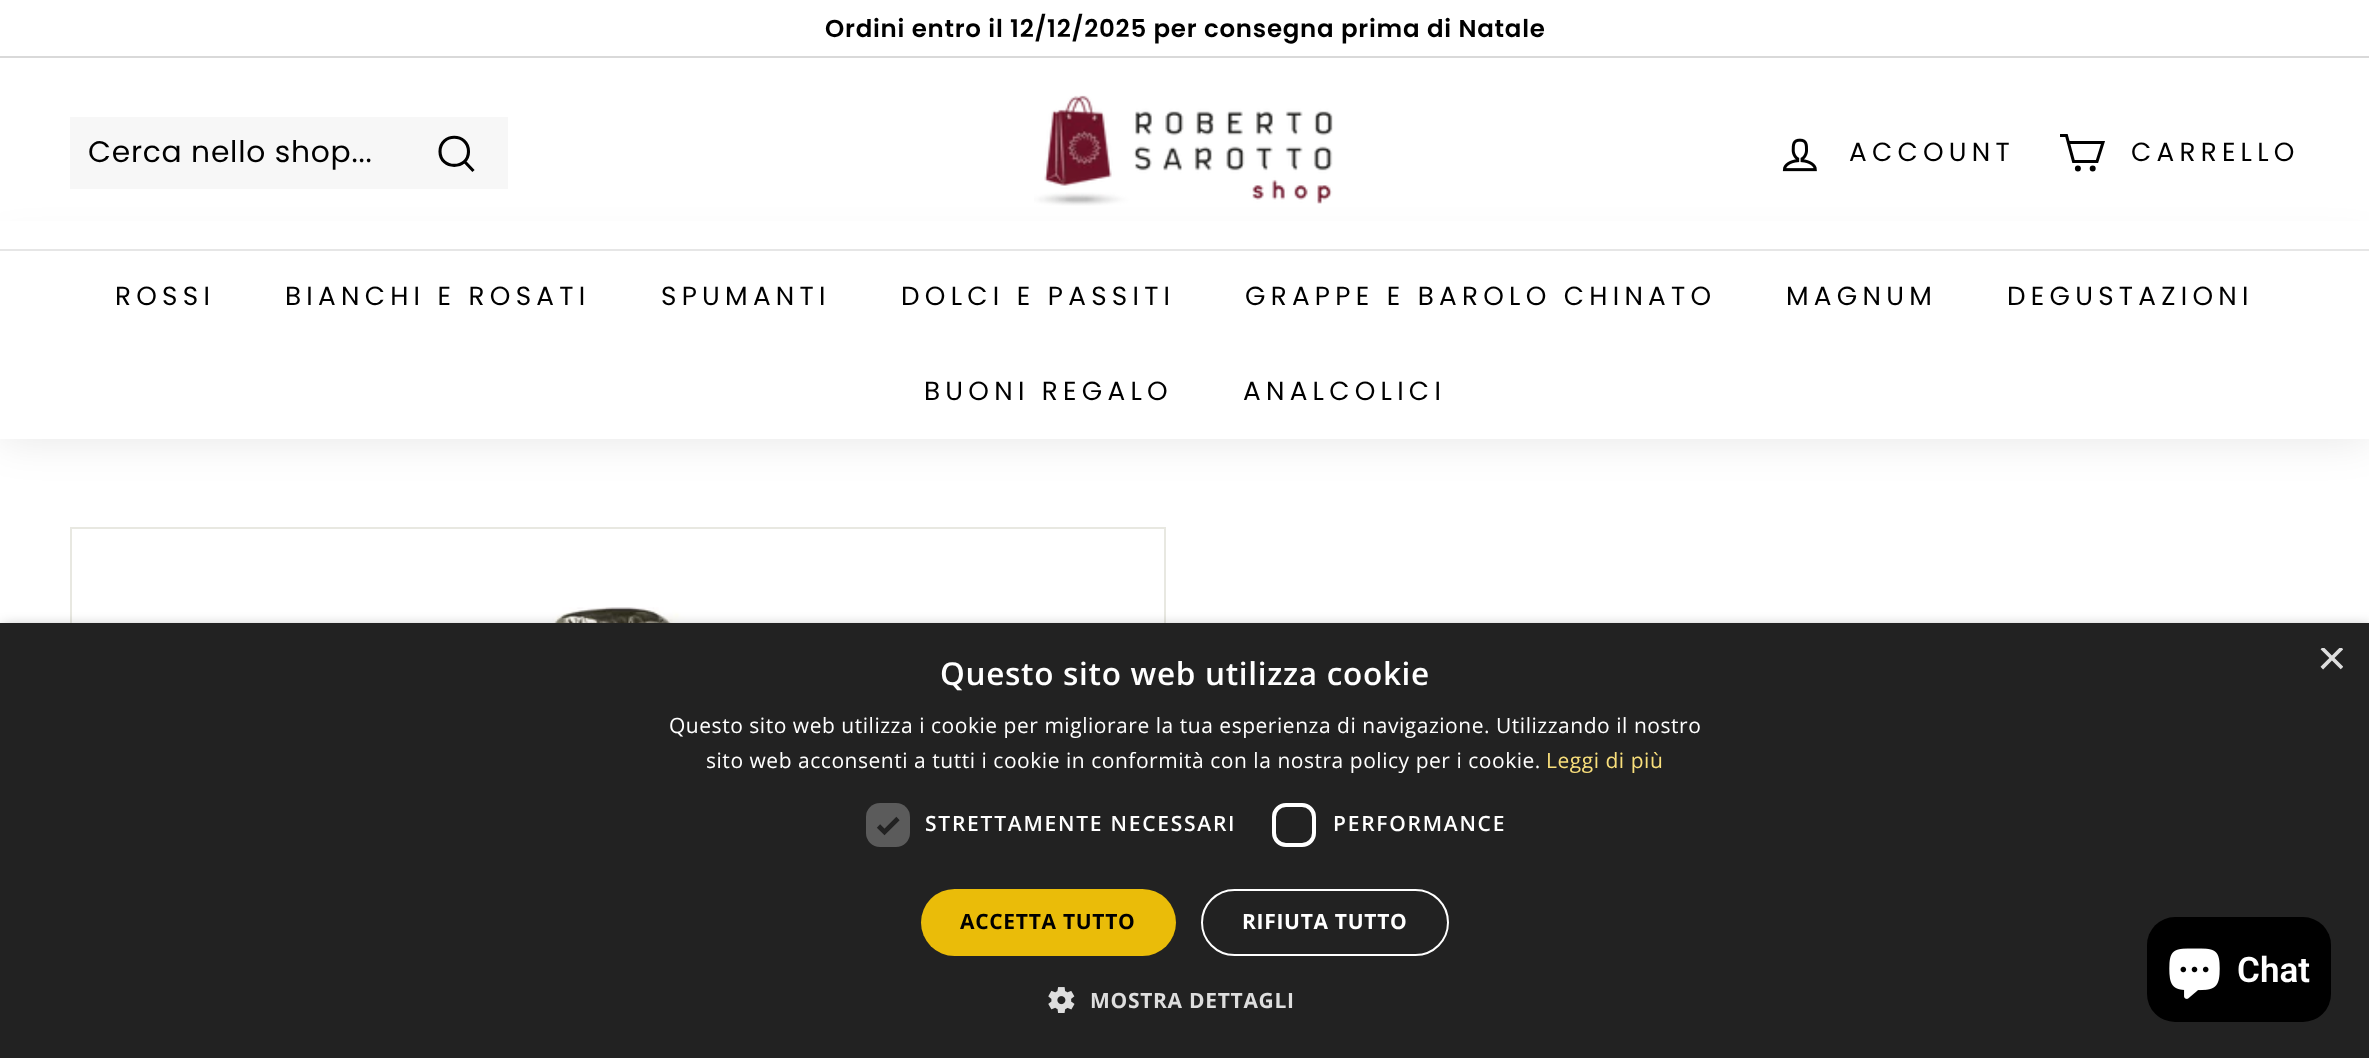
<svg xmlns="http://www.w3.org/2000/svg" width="2369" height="1058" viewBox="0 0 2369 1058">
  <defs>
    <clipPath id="clip1"><path d="M2317 648h26v26H2317z"/></clipPath>
  </defs>
  <rect width="100%" height="100%" fill="#fff"/>
  <path d="M0 56h2369v2H0z" fill="#d9d9d9"/>
  <path d="M0 249h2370v190H0z" fill="#0000001a" filter="blur(22px)"/>
  <path d="M0 221h2369v28H0z" fill="#fff"/>
  <path d="M70 117h438v72H70z" fill="#f7f7f7"/>
  <path d="M468.5 151.5C468.5 170 440 170 440 151.5C440 132.5 468.5 132.5 468.5 151.5ZM473.5 171L464.5 161.5" fill="none" stroke="#000" stroke-width="3.1"/>
  <image x="1034" y="95" width="299" height="111" href="img/1.png"/>
  <image x="1782" y="138" width="35" height="34" href="img/2.png"/>
  <path d="M2068.5 142.5H2103L2097 161.5H2073.5L2066.5 135.5H2060" fill="none" stroke="#000" stroke-width="3"/>
  <circle cx="2077.9" cy="168.6" r="1.5" fill="none" stroke="#000" stroke-width="3"/>
  <circle cx="2092.7" cy="168.6" r="1.5" fill="none" stroke="#000" stroke-width="3"/>
  <path d="M0 251h2369v188H0z" fill="#fff"/>
  <path d="M0 249h2369v2H0z" fill="#e6e6e6"/>
  <path d="M71 528h1094v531H71z" fill="none" stroke="#e8e8e1" stroke-width="2"/>
  <image x="487" y="607" width="258" height="16" href="img/3.png"/>
  <path d="M2 627h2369v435H2z" fill="#00000059" filter="blur(7px)"/>
  <path d="M0 623h2369v435H0z" fill="#222"/>
  <rect x="866" y="803" width="44" height="44" rx="14" fill="#5b5b5b"/>
  <path d="M878.5 826L884.5 832L898 818.5" fill="none" stroke="#222" stroke-width="4.6"/>
  <rect x="1274" y="805" width="40" height="40" rx="12" fill="none" stroke="#fff" stroke-width="4"/>
  <rect x="921" y="889" width="255" height="67" rx="33.5" fill="#eabc09"/>
  <rect x="1202" y="890" width="246" height="65" rx="32.5" fill="none" stroke="#fff" stroke-width="2"/>
  <image x="1048" y="987" width="27" height="26" href="img/4.png"/>
  <rect x="2147" y="917" width="184" height="105" rx="28" fill="#000"/>
  <image x="2169" y="948" width="51" height="51" href="img/5.png"/>
  <text x="825" y="37" font-family="Poppins" font-size="24.5" font-weight="600" letter-spacing="0.75" fill="#000">Ordini entro il 12/12/2025 per consegna prima di Natale</text>
  <text x="88" y="162" font-family="Poppins" font-size="29.75" letter-spacing="0.75" fill="#000">Cerca nello shop...</text>
  <g font-family="Poppins" font-size="26.25" letter-spacing="5.25" fill="#000">
    <text x="1849" y="161">ACCOUNT</text>
    <text x="2131" y="161">CARRELLO</text>
    <text x="115" y="305">ROSSI</text>
    <text x="285" y="305">BIANCHI E ROSATI</text>
    <text x="661" y="305">SPUMANTI</text>
    <text x="901" y="305">DOLCI E PASSITI</text>
    <text x="1245" y="305">GRAPPE E BAROLO CHINATO</text>
    <text x="1786" y="305">MAGNUM</text>
    <text x="2007" y="305">DEGUSTAZIONI</text>
    <text x="924" y="400">BUONI REGALO</text>
    <text x="1243" y="400">ANALCOLICI</text>
  </g>
  <text x="940" y="685" font-family="Open Sans" font-size="31.5" font-weight="600" letter-spacing="0.7" fill="#fff">Questo sito web utilizza cookie</text>
  <g clip-path="url(#clip1)">
    <text x="2317" y="675" font-family="Liberation Sans" font-size="51" fill="#dedede">×</text>
  </g>
  <g font-family="Open Sans" font-size="21" letter-spacing="0.53" fill="#fff">
    <text x="669" y="733">Questo sito web utilizza i cookie per migliorare la tua esperienza di navigazione. Utilizzando il nostro</text>
    <text x="706" y="768">sito web acconsenti a tutti i cookie in conformità con la nostra policy per i cookie.</text>
  </g>
  <text x="1546" y="768" font-family="Open Sans" font-size="21" letter-spacing="0.53" fill="#f9df7b">Leggi di più</text>
  <g font-family="Open Sans" font-size="21" font-weight="600" letter-spacing="1.75" fill="#fff">
    <text x="925" y="831">STRETTAMENTE NECESSARI</text>
    <text x="1333" y="831">PERFORMANCE</text>
  </g>
  <text x="960" y="929" font-family="Open Sans" font-size="21" font-weight="bold" letter-spacing="0.7" fill="#000">ACCETTA TUTTO</text>
  <text x="1242" y="929" font-family="Open Sans" font-size="21" font-weight="bold" letter-spacing="0.7" fill="#fff">RIFIUTA TUTTO</text>
  <text x="1090" y="1008" font-family="Open Sans" font-size="21" font-weight="bold" letter-spacing="0.7" fill="#dedede">MOSTRA DETTAGLI</text>
  <text x="2237" y="982" font-family="Roboto" font-size="35" font-weight="600" fill="#fff">Chat</text>
</svg>
